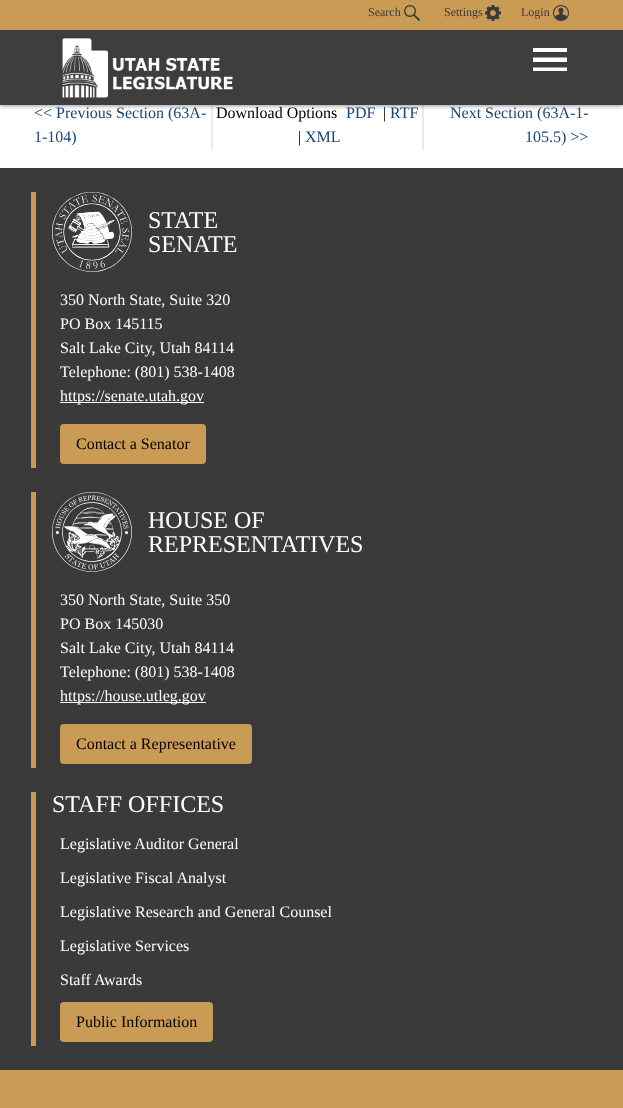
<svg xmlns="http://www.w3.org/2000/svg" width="623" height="1108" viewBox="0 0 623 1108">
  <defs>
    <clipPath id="clip1"><path d="M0 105h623v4H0z"/></clipPath>
    <clipPath id="clip2"><path d="M533 48h34v23H533z"/></clipPath>
  </defs>
  <rect width="100%" height="100%" fill="#fff"/>
  <path d="M0 30h623v75H0z" fill="#3e3e3e"/>
  <path d="M211 105h213v45H211z" fill="#ebebeb"/>
  <path d="M213 105h209v45H213z" fill="#fff"/>
  <g clip-path="url(#clip1)">
    <path d="M0 1h623v105H0z" fill="#00000066" filter="blur(2px)"/>
  </g>
  <path d="M0 0h623v30H0z" fill="#ca9b54"/>
  <image x="404" y="5" width="16" height="16" href="img/1.png"/>
  <image x="485" y="5" width="16" height="16" href="img/2.png"/>
  <image x="553" y="5" width="16" height="16" href="img/3.png"/>
  <image x="62" y="38" width="171" height="60" href="img/4.png"/>
  <g clip-path="url(#clip2)">
    <path d="M533 57.5H567V62H533ZM533 48H567V52H533ZM533 67.5H567V71.5H533Z" fill="#fff"/>
  </g>
  <path d="M0 168h623v902H0z" fill="#3a3a3a"/>
  <path d="M31 192h5v276H31z" fill="#ca9b54"/>
  <image x="52" y="192" width="80" height="80" href="img/5.png"/>
  <path d="M60 402h144v1H60z" fill="#fff"/>
  <rect x="60" y="424" width="146" height="40" rx="4" fill="#ca9b54"/>
  <path d="M31 492h5v276H31z" fill="#ca9b54"/>
  <image x="52" y="492" width="80" height="80" href="img/6.png"/>
  <path d="M60 702h146v1H60z" fill="#fff"/>
  <rect x="60" y="724" width="192" height="40" rx="4" fill="#ca9b54"/>
  <path d="M31 792h5v254H31z" fill="#ca9b54"/>
  <rect x="60" y="1002" width="153" height="40" rx="4" fill="#ca9b54"/>
  <path d="M0 1070h623v38H0z" fill="#ca9b54"/>
  <g font-family="Liberation Serif" font-size="12" fill="#3a3a3a">
    <text x="368" y="16">Search</text>
    <text x="444" y="16">Settings</text>
    <text x="521" y="16">Login</text>
  </g>
  <g font-family="Liberation Serif" font-size="16" fill="#184477">
    <text x="34" y="118">&lt;&lt; Previous Section (63A-</text>
    <text x="34" y="142">1-104)</text>
  </g>
  <text x="216" y="118" font-family="Liberation Serif" font-size="16" fill="#000">Download Options</text>
  <text x="346" y="118" font-family="Liberation Serif" font-size="16" fill="#184477">PDF</text>
  <text x="383" y="118" font-family="Liberation Serif" font-size="16" fill="#000">|</text>
  <text x="390" y="118" font-family="Liberation Serif" font-size="16" fill="#184477">RTF</text>
  <text x="298" y="142" font-family="Liberation Serif" font-size="16" fill="#000">|</text>
  <g font-family="Liberation Serif" font-size="16" fill="#184477">
    <text x="305" y="142">XML</text>
    <text x="450" y="118">Next Section (63A-1-</text>
    <text x="525" y="142">105.5) &gt;&gt;</text>
  </g>
  <g font-family="Liberation Serif" font-size="24" fill="#fff">
    <text x="148" y="228">STATE</text>
    <text x="148" y="252">SENATE</text>
  </g>
  <g font-family="Liberation Serif" font-size="16" fill="#fff">
    <text x="60" y="305">350 North State, Suite 320</text>
    <text x="60" y="329">PO Box 145115</text>
    <text x="60" y="353">Salt Lake City, Utah 84114</text>
    <text x="60" y="377">Telephone: (801) 538-1408</text>
    <text x="60" y="401">https://senate.utah.gov</text>
  </g>
  <text x="76" y="449" font-family="Liberation Serif" font-size="16" fill="#000">Contact a Senator</text>
  <g font-family="Liberation Serif" font-size="24" fill="#fff">
    <text x="148" y="528">HOUSE OF</text>
    <text x="148" y="552">REPRESENTATIVES</text>
  </g>
  <g font-family="Liberation Serif" font-size="16" fill="#fff">
    <text x="60" y="605">350 North State, Suite 350</text>
    <text x="60" y="629">PO Box 145030</text>
    <text x="60" y="653">Salt Lake City, Utah 84114</text>
    <text x="60" y="677">Telephone: (801) 538-1408</text>
    <text x="60" y="701">https://house.utleg.gov</text>
  </g>
  <text x="76" y="749" font-family="Liberation Serif" font-size="16" fill="#000">Contact a Representative</text>
  <text x="52" y="812" font-family="Liberation Serif" font-size="24" fill="#fff">STAFF OFFICES</text>
  <g font-family="Liberation Serif" font-size="16" fill="#fff">
    <text x="60" y="849">Legislative Auditor General</text>
    <text x="60" y="883">Legislative Fiscal Analyst</text>
    <text x="60" y="917">Legislative Research and General Counsel</text>
    <text x="60" y="951">Legislative Services</text>
    <text x="60" y="985">Staff Awards</text>
  </g>
  <text x="76" y="1027" font-family="Liberation Serif" font-size="16" fill="#000">Public Information</text>
</svg>
